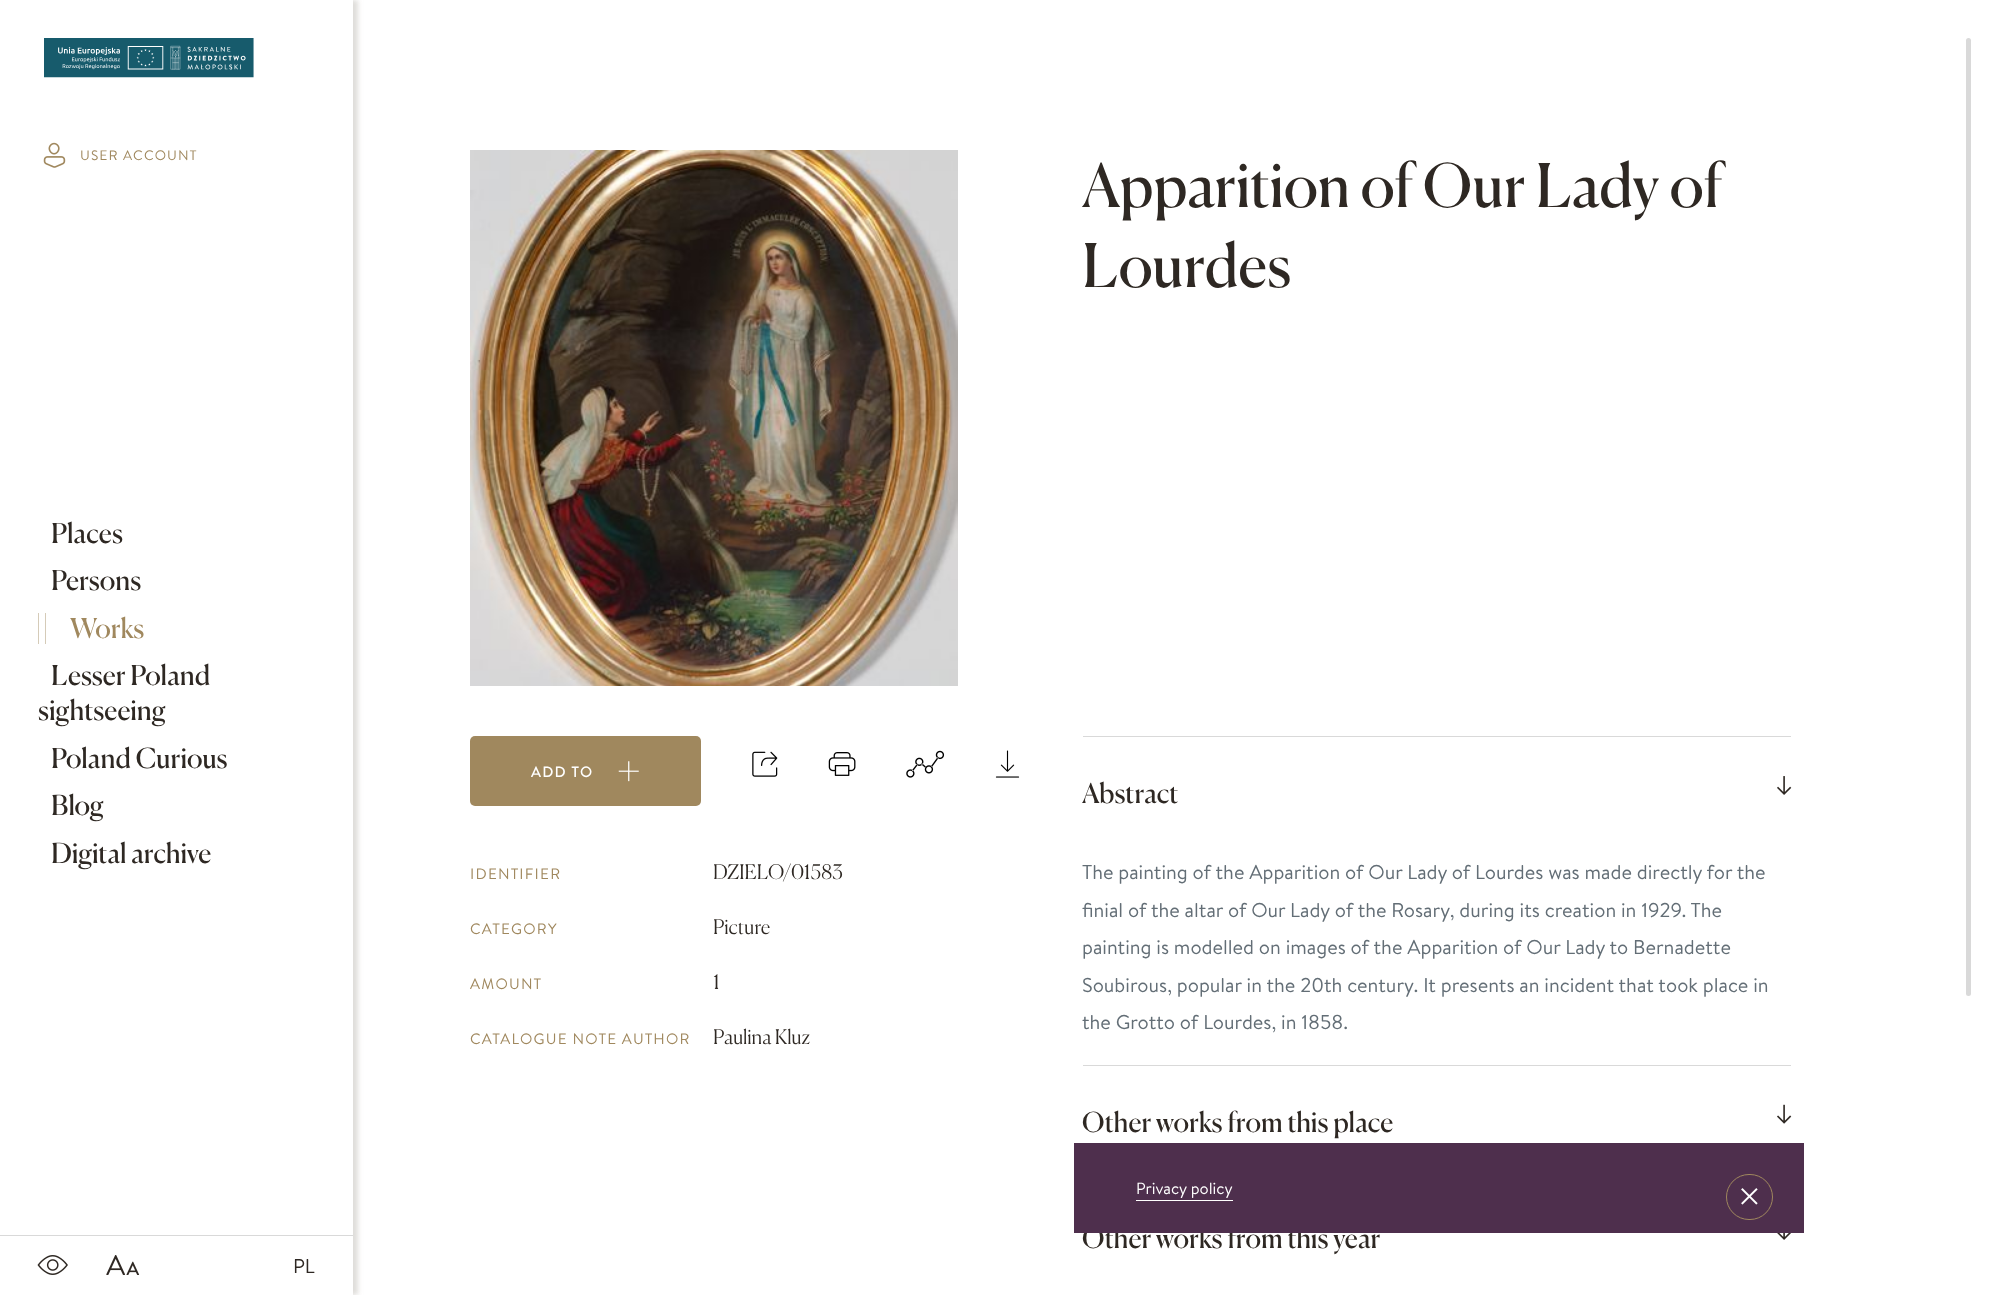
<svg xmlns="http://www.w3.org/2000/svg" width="2003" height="1295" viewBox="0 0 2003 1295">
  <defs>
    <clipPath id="clip1"><path d="M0 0H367V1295H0ZM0 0H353V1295H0Z" clip-rule="evenodd"/></clipPath>
  </defs>
  <rect width="100%" height="100%" fill="#fff"/>
  <g clip-path="url(#clip1)">
    <path d="M5 0h353v1295H5z" fill="#7e776b40" filter="blur(2.5px)"/>
  </g>
  <image x="44" y="38" width="210" height="40" href="img/1.png"/>
  <image x="43" y="142" width="23" height="26" href="img/2.png"/>
  <path d="M45 613h1v31H45z" fill="#d5cbb8"/>
  <path d="M38 613h1v31H38z" fill="#d5cbb8"/>
  <path d="M0 1235h353v1H0z" fill="#d9d9d9"/>
  <image x="37" y="1255" width="31" height="20" href="img/3.png"/>
  <image x="106" y="1255" width="34" height="20" href="img/4.png"/>
  <image x="470" y="150" width="488" height="536" href="img/5.png"/>
  <rect x="470" y="736" width="231" height="70" rx="5" fill="#a0885e"/>
  <image x="618" y="761" width="21" height="21" href="img/6.png"/>
  <image x="752" y="751" width="26" height="26" href="img/7.png"/>
  <image x="828" y="752" width="28" height="24" href="img/8.png"/>
  <image x="906" y="750" width="39" height="28" href="img/9.png"/>
  <image x="995" y="750" width="25" height="28" href="img/10.png"/>
  <path d="M1083 736h708v1H1083z" fill="#d9d9d9"/>
  <image x="1777" y="776" width="15" height="19" href="img/11.png"/>
  <path d="M1083 1065h708v1H1083z" fill="#d9d9d9"/>
  <image x="1777" y="1104" width="15" height="20" href="img/12.png"/>
  <image x="1777" y="1233" width="14" height="7" href="img/13.png"/>
  <rect x="1966" y="38" width="5" height="958" rx="2.5" fill="#d9d9d9"/>
  <text x="80" y="160" font-family="Brandon Grotesque" font-size="13.75" letter-spacing="1.1" fill="#a0885e">USER ACCOUNT</text>
  <g font-family="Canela" font-size="27.5" fill="#2e2823">
    <text x="51" y="543">Places</text>
    <text x="51" y="590">Persons</text>
  </g>
  <text x="70" y="638" font-family="Canela" font-size="27.5" fill="#a0885e">Works</text>
  <g font-family="Canela" font-size="27.5" fill="#2e2823">
    <text x="51" y="685">Lesser Poland</text>
    <text x="38" y="720">sightseeing</text>
    <text x="51" y="768">Poland Curious</text>
    <text x="51" y="815">Blog</text>
    <text x="51" y="863">Digital archive</text>
  </g>
  <text x="293" y="1273" font-family="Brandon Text" font-size="20" fill="#2e2823">PL</text>
  <g font-family="Canela" font-size="60" fill="#2e2823">
    <text x="1082" y="207">Apparition of Our Lady of</text>
    <text x="1082" y="287">Lourdes</text>
  </g>
  <text x="531" y="777" font-family="Brandon Grotesque" font-size="15" font-weight="500" letter-spacing="1.25" fill="#fff">ADD TO</text>
  <text x="470" y="879" font-family="Brandon Grotesque" font-size="15" letter-spacing="1.25" fill="#a0885e">IDENTIFIER</text>
  <text x="713" y="879" font-family="Canela" font-size="20" font-weight="300" fill="#2e2823">DZIELO/01583</text>
  <text x="470" y="934" font-family="Brandon Grotesque" font-size="15" letter-spacing="1.25" fill="#a0885e">CATEGORY</text>
  <text x="713" y="934" font-family="Canela" font-size="20" font-weight="300" fill="#2e2823">Picture</text>
  <text x="470" y="989" font-family="Brandon Grotesque" font-size="15" letter-spacing="1.25" fill="#a0885e">AMOUNT</text>
  <text x="713" y="989" font-family="Canela" font-size="20" font-weight="300" fill="#2e2823">1</text>
  <text x="470" y="1044" font-family="Brandon Grotesque" font-size="15" letter-spacing="1.25" fill="#a0885e">CATALOGUE NOTE AUTHOR</text>
  <text x="713" y="1044" font-family="Canela" font-size="20" font-weight="300" fill="#2e2823">Paulina Kluz</text>
  <text x="1082" y="803" font-family="Canela" font-size="27.5" fill="#2e2823">Abstract</text>
  <g font-family="Brandon Text" font-size="20" fill="#636e76">
    <text x="1082" y="879">The painting of the Apparition of Our Lady of Lourdes was made directly for the</text>
    <text x="1082" y="917">finial of the altar of Our Lady of the Rosary, during its creation in 1929. The</text>
    <text x="1082" y="954">painting is modelled on images of the Apparition of Our Lady to Bernadette</text>
    <text x="1082" y="992">Soubirous, popular in the 20th century. It presents an incident that took place in</text>
    <text x="1082" y="1029">the Grotto of Lourdes, in 1858.</text>
  </g>
  <g font-family="Canela" font-size="27.5" fill="#2e2823">
    <text x="1082" y="1132">Other works from this place</text>
    <text x="1082" y="1248">Other works from this year</text>
  </g>
  <path d="M1074 1143h730v90H1074z" fill="#4e2f4d"/>
  <text x="1136" y="1194" font-family="Brandon Text" font-size="16.25" fill="#fff">Privacy policy</text>
  <path d="M1136 1200h97v1H1136z" fill="#fff"/>
  <rect x="1726.5" y="1174.5" width="46" height="45" rx="22.5" fill="none" stroke="#a0885e"/>
  <image x="1741" y="1188" width="17" height="17" href="img/14.png"/>
</svg>
